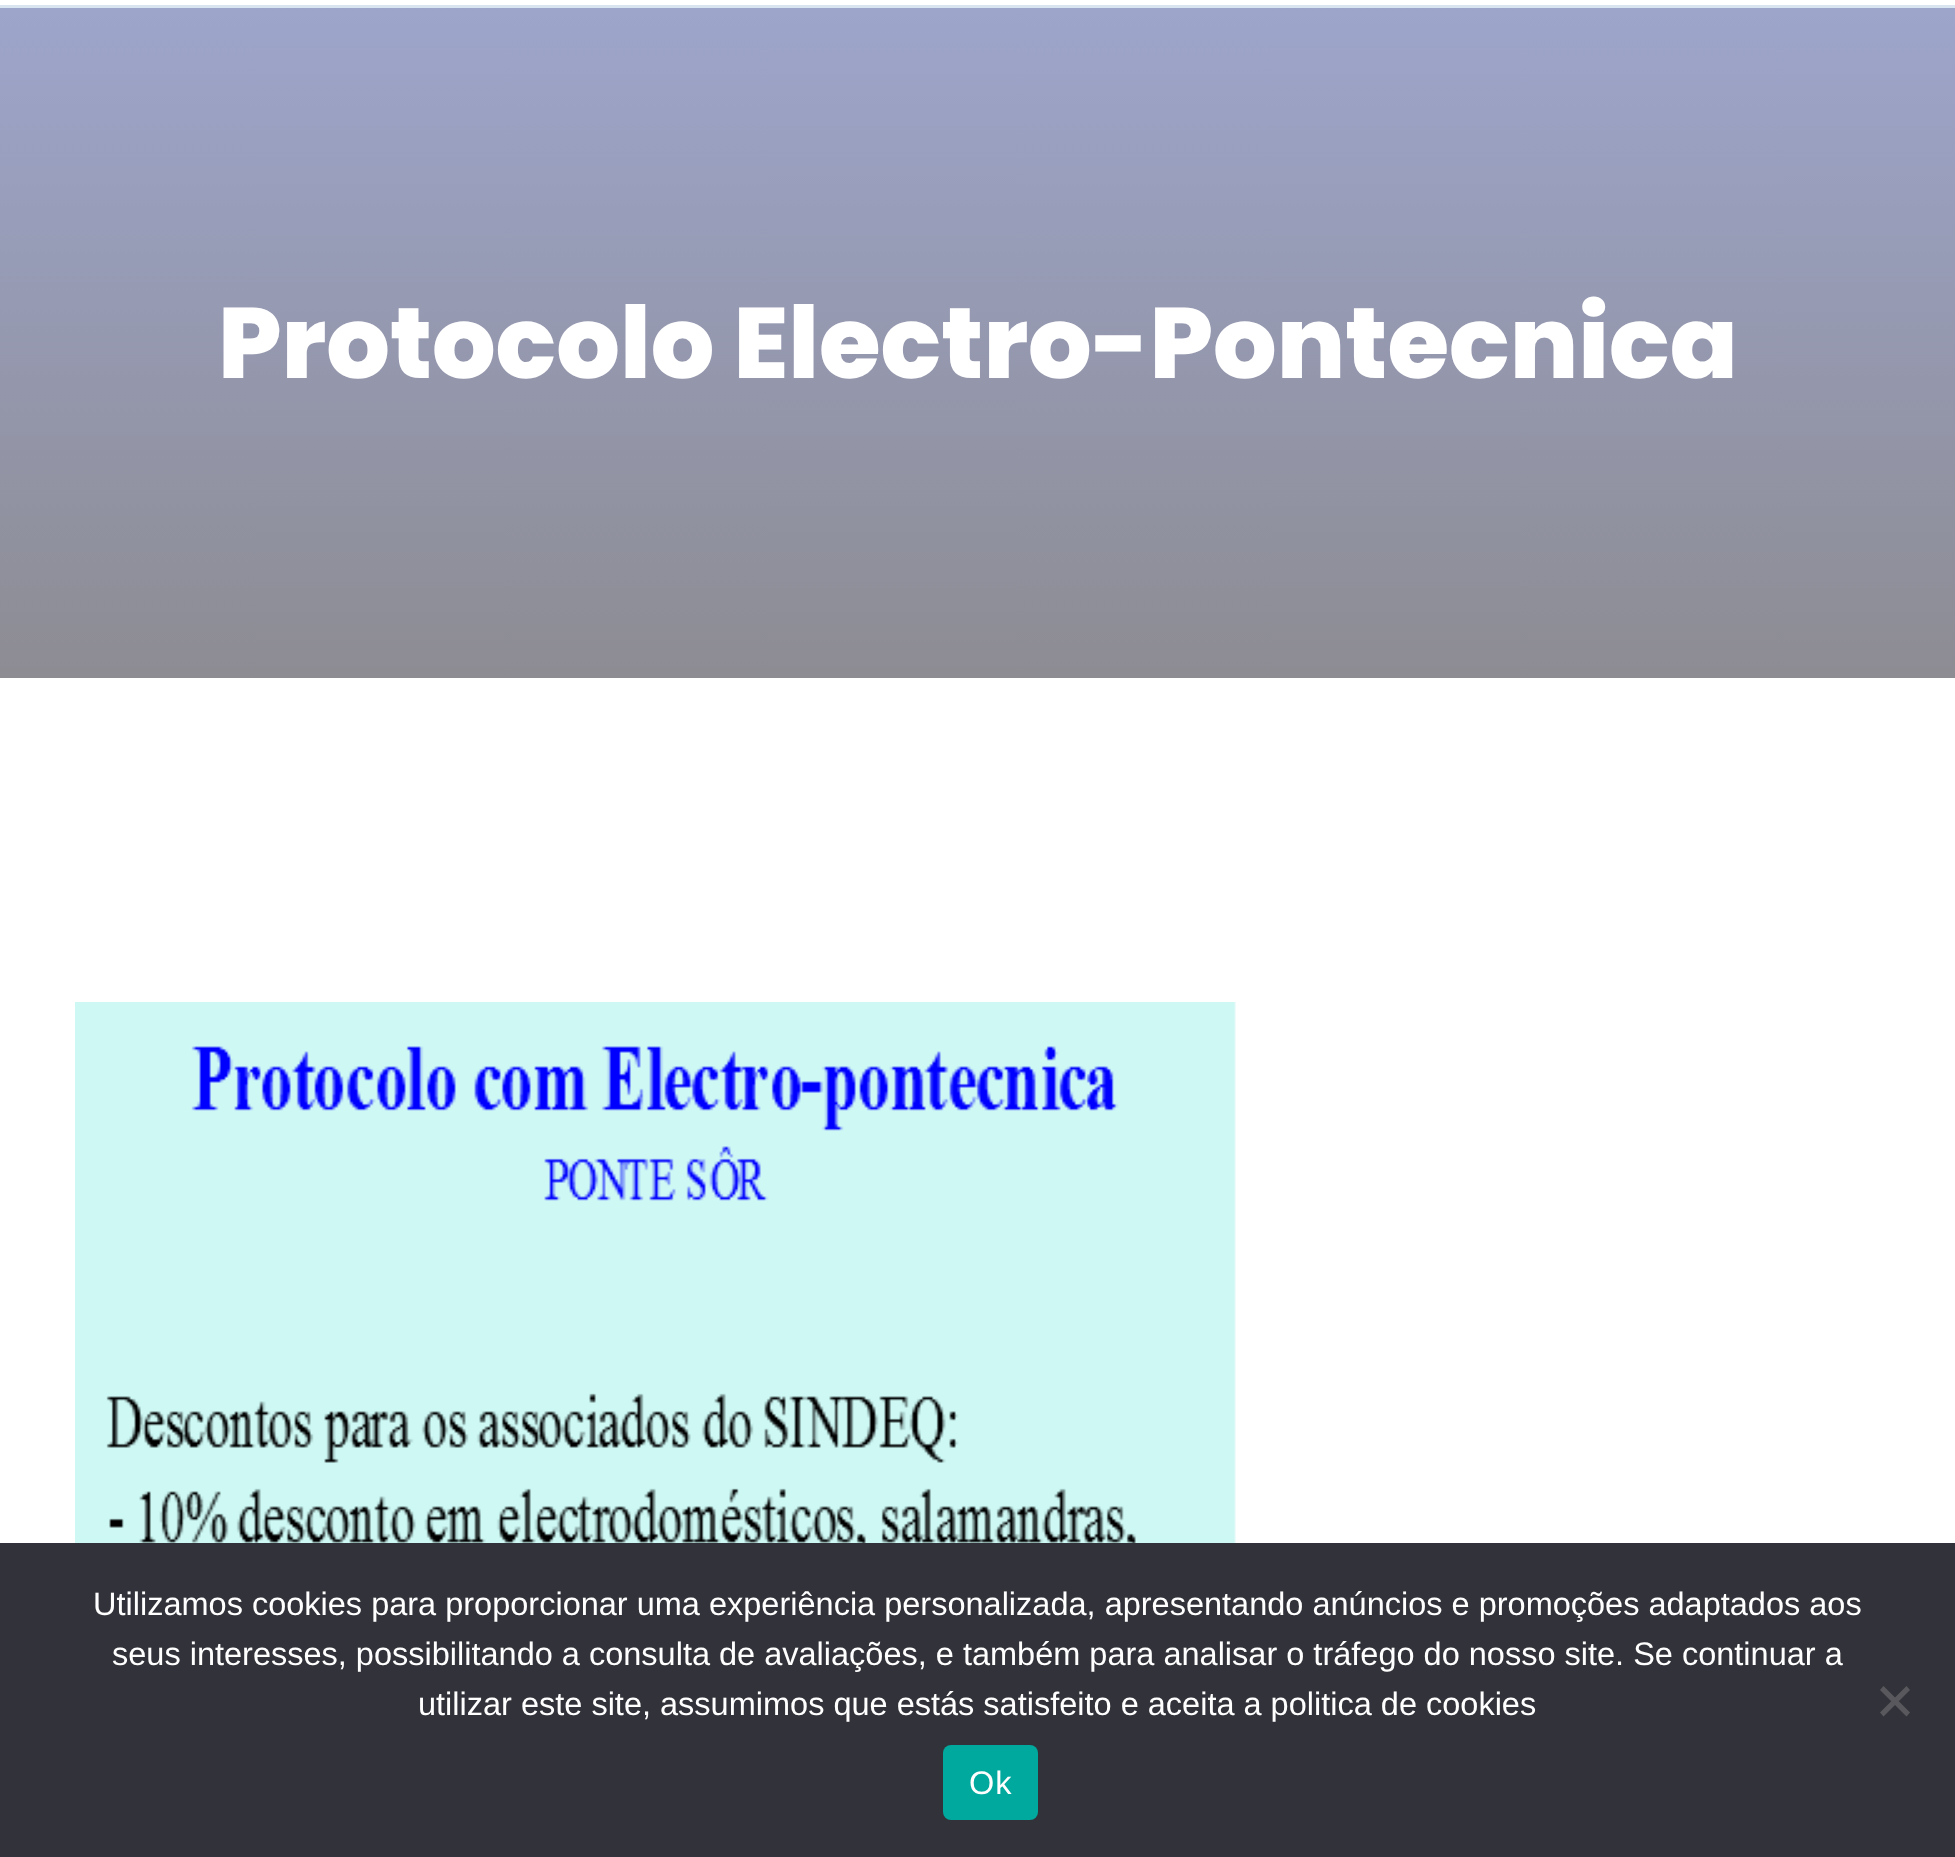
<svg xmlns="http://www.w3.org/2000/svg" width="1955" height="1857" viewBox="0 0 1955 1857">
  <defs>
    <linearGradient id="g1" gradientUnits="userSpaceOnUse" x1="978" y1="7.5" x2="978" y2="678"><stop offset="0" stop-color="#9da5cb"/><stop offset="1" stop-color="#8d8c93"/></linearGradient>
  </defs>
  <rect width="100%" height="100%" fill="#fff"/>
  <path d="M0 5h1955v3H0z" fill="#d8e4f0"/>
  <path d="M0 8h1955v670H0z" fill="url(#g1)"/>
  <image x="75" y="1002" width="1161" height="541" href="img/1.png"/>
  <path d="M0 1543h1955v314H0z" fill="#32323a"/>
  <path d="M1906.5 1686L1910 1690L1883.5 1716.5L1880 1712.5Z" fill="#59595d"/>
  <path d="M1880 1690L1883.5 1686L1910 1712.5L1906.5 1716.5Z" fill="#59595d"/>
  <rect x="943" y="1745" width="95" height="75" rx="8" fill="#00a99d"/>
  <text x="218" y="378" font-family="Poppins" font-size="100" font-weight="800" fill="#fff">Protocolo Electro-Pontecnica</text>
  <g font-family="Liberation Sans" font-size="32.5" fill="#fff">
    <text x="93" y="1615">Utilizamos cookies para proporcionar uma experiência personalizada, apresentando anúncios e promoções adaptados aos</text>
    <text x="112" y="1665">seus interesses, possibilitando a consulta de avaliações, e também para analisar o tráfego do nosso site. Se continuar a</text>
    <text x="418" y="1715">utilizar este site, assumimos que estás satisfeito e aceita a politica de cookies</text>
  </g>
  <text x="969" y="1794" font-family="Liberation Sans" font-size="32.5" letter-spacing="1" fill="#fff">Ok</text>
</svg>
